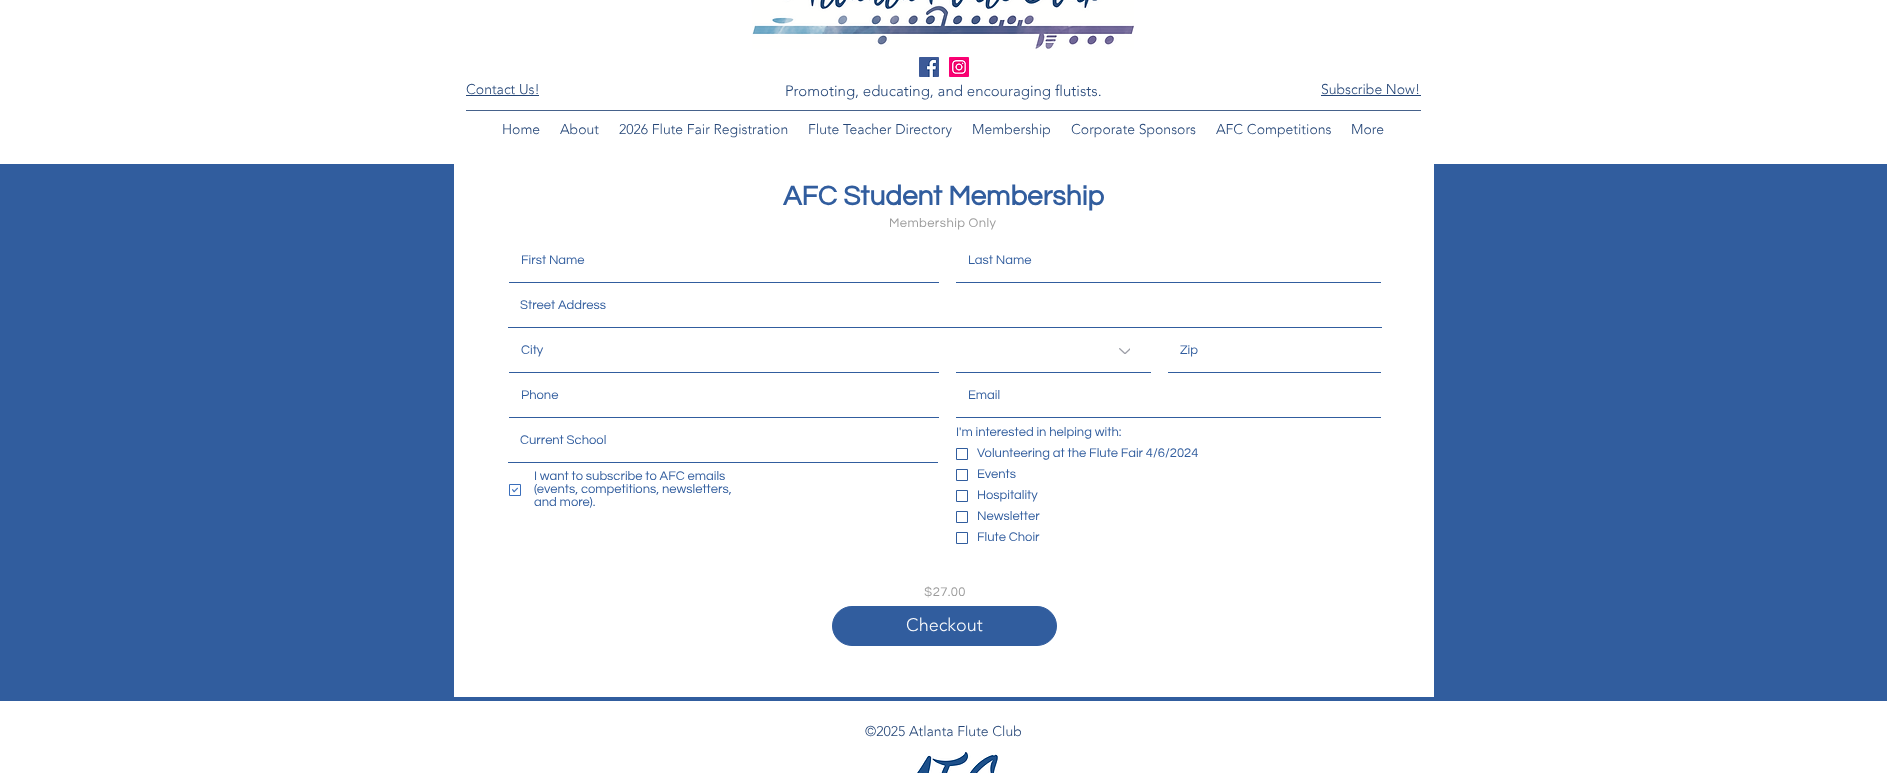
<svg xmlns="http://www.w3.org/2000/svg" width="1887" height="773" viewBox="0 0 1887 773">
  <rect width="100%" height="100%" fill="#315d9e"/>
  <path d="M0 0h1887v164H0z" fill="#fff"/>
  <image x="752" y="0" width="382" height="49" href="img/1.png"/>
  <image x="919" y="57" width="20" height="20" href="img/2.png"/>
  <image x="949" y="57" width="20" height="20" href="img/3.png"/>
  <path d="M466 95h73v1H466z" fill="#254677"/>
  <path d="M1321 95h100v1H1321z" fill="#254677"/>
  <path d="M466 110h955v1H466z" fill="#46628b"/>
  <path d="M454 164h980v533H454z" fill="#fff"/>
  <path d="M509 282h430v1H509z" fill="#315d9e"/>
  <path d="M956 282h425v1H956z" fill="#315d9e"/>
  <path d="M508 327h874v1H508z" fill="#315d9e"/>
  <path d="M509 372h430v1H509z" fill="#315d9e"/>
  <image x="1119" y="348" width="11" height="6" href="img/4.png"/>
  <path d="M956 372h195v1H956z" fill="#315d9e"/>
  <path d="M1168 372h213v1H1168z" fill="#315d9e"/>
  <path d="M509 417h430v1H509z" fill="#315d9e"/>
  <path d="M956 417h425v1H956z" fill="#315d9e"/>
  <path d="M508 462h430v1H508z" fill="#315d9e"/>
  <path d="M956.5 448.5h11v11H956.5z" fill="none" stroke="#315d9e"/>
  <path d="M956.5 469.5h11v11H956.5z" fill="none" stroke="#315d9e"/>
  <path d="M956.5 490.5h11v11H956.5z" fill="none" stroke="#315d9e"/>
  <path d="M956.5 511.5h11v11H956.5z" fill="none" stroke="#315d9e"/>
  <path d="M956.5 532.5h11v11H956.5z" fill="none" stroke="#315d9e"/>
  <path d="M509.5 484.5h11v11H509.5z" fill="none" stroke="#3a6ebb"/>
  <image x="512" y="487" width="6" height="6" href="img/5.png"/>
  <rect x="832.5" y="606.5" width="224" height="39" rx="19.5" fill="#315d9e" stroke="#315d9e"/>
  <path d="M0 701h1887v72H0z" fill="#fff"/>
  <image x="917" y="752" width="81" height="21" href="img/6.png"/>
  <text x="466" y="94" font-family="'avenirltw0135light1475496'" font-size="14" font-weight="300" fill="#254677">Contact Us!</text>
  <text x="785" y="96" font-family="'avenirltw0135light1475496'" font-size="15" font-weight="300" fill="#254677">Promoting, educating, and encouraging flutists.</text>
  <g font-family="'avenirltw0135light1475496'" font-size="14" font-weight="300" fill="#254677">
    <text x="1321" y="94">Subscribe Now!</text>
    <text x="502" y="134">Home</text>
    <text x="560" y="134">About</text>
    <text x="619" y="134">2026 Flute Fair Registration</text>
    <text x="808" y="134">Flute Teacher Directory</text>
    <text x="972" y="134">Membership</text>
    <text x="1071" y="134">Corporate Sponsors</text>
    <text x="1216" y="134">AFC Competitions</text>
    <text x="1351" y="134">More</text>
  </g>
  <text x="783" y="205" font-family="Questrial" font-size="28" font-weight="bold" fill="#315d9e">AFC Student Membership</text>
  <text x="889" y="227" font-family="Questrial" font-size="13" letter-spacing="0.4" fill="#9c9c9c">Membership Only</text>
  <g font-family="Questrial" font-size="13" fill="#315d9e">
    <text x="521" y="264">First Name</text>
    <text x="968" y="264">Last Name</text>
    <text x="520" y="309">Street Address</text>
    <text x="521" y="354">City</text>
    <text x="1180" y="354">Zip</text>
    <text x="521" y="399">Phone</text>
    <text x="968" y="399">Email</text>
    <text x="520" y="444">Current School</text>
    <text x="956" y="436">I'm interested in helping with:</text>
    <text x="977" y="457">Volunteering at the Flute Fair 4/6/2024</text>
    <text x="977" y="478">Events</text>
    <text x="977" y="499">Hospitality</text>
    <text x="977" y="520">Newsletter</text>
    <text x="977" y="541">Flute Choir</text>
    <text x="534" y="480">I want to subscribe to AFC emails</text>
    <text x="534" y="493">(events, competitions, newsletters,</text>
    <text x="534" y="506">and more).</text>
  </g>
  <text x="924" y="596" font-family="Questrial" font-size="13" letter-spacing="0.4" fill="#9c9c9c">$27.00</text>
  <text x="906" y="631" font-family="'avenirltw0135light1475496'" font-size="18" font-weight="300" fill="#fff">Checkout</text>
  <text x="865" y="736" font-family="'avenirltw0135light1475496'" font-size="14" font-weight="300" fill="#254677">©2025 Atlanta Flute Club</text>
</svg>
